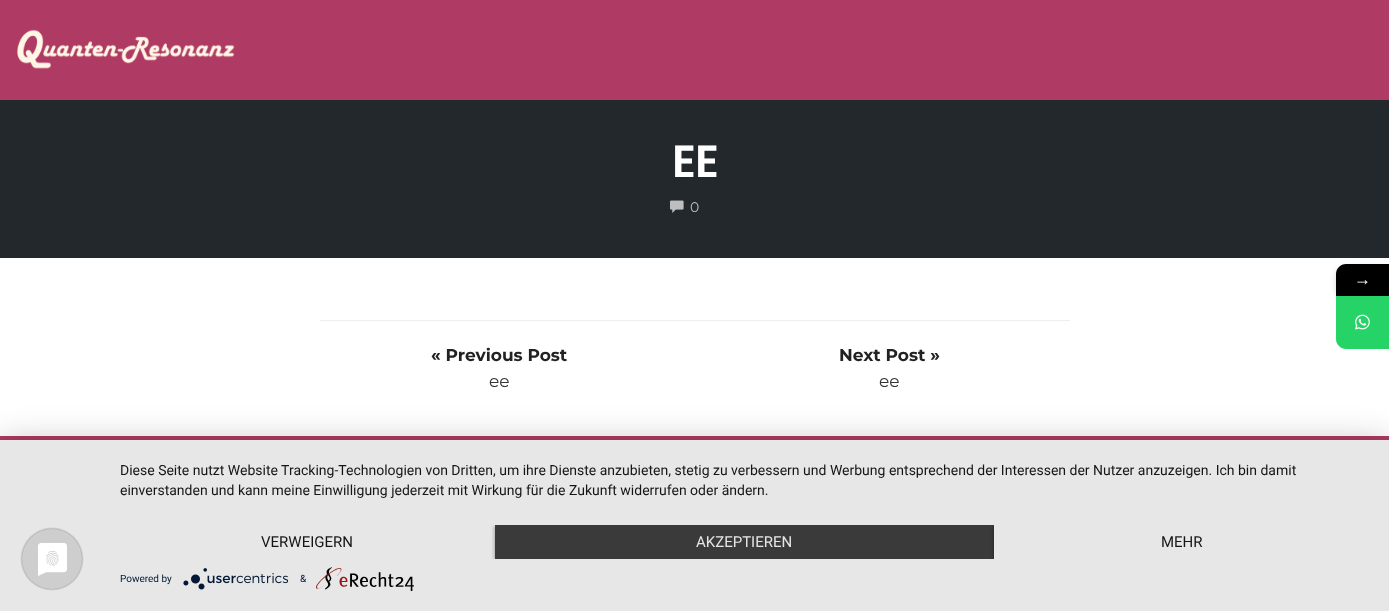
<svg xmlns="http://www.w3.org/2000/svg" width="1389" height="611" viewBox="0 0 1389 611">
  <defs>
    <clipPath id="clip1"><path d="M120 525h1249v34H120z"/></clipPath>
  </defs>
  <rect width="100%" height="100%" fill="#fff"/>
  <path d="M0 0h1389v100H0z" fill="#af3a64"/>
  <image x="17" y="29" width="218" height="40" href="img/1.png"/>
  <path d="M0 100h1389v158H0z" fill="#23282d"/>
  <image x="670" y="200" width="14" height="13" href="img/2.png"/>
  <path d="M320 320h750v1H320z" fill="#eee"/>
  <rect x="1336" y="267" width="53" height="32" rx="10" fill="#00000029" filter="blur(3px)"/>
  <path d="M1346 264H1389V296H1336V274C1336 268.5 1340.5 264 1346 264Z" fill="#000"/>
  <path d="M1336 296H1389V349H1346C1340.5 349 1336 344.5 1336 339Z" fill="#26d367"/>
  <image x="1355" y="314" width="15" height="16" href="img/3.png"/>
  <path d="M0 436h1389v4H0z" fill="#af3a64"/>
  <path d="M0 446h1389v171H0z" fill="#0000004d" filter="blur(18px)"/>
  <path d="M0 440h1389v171H0z" fill="#e7e7e7"/>
  <image x="20" y="527" width="64" height="64" href="img/4.png"/>
  <g clip-path="url(#clip1)">
    <path d="M495 526h499v34H495z" fill="#00000066" filter="blur(2px)"/>
  </g>
  <path d="M495 525h499v34H495z" fill="#3a3a3a"/>
  <g clip-path="url(#clip1)">
    <path d="M994 526h375v34H994z" fill="#00000066" filter="blur(2px)"/>
  </g>
  <path d="M994 525h375v34H994z" fill="#e7e7e7"/>
  <image x="183" y="568" width="106" height="22" href="img/5.png"/>
  <image x="316" y="567" width="98" height="24" href="img/6.png"/>
  <text x="672" y="177" font-family="Poppins" font-size="45" font-weight="600" letter-spacing="-1" fill="#fff">EE</text>
  <text x="690" y="212" font-family="Montserrat" font-size="14" fill="#bdbfc0">0</text>
  <text x="431" y="361" font-family="Montserrat" font-size="17" font-weight="bold" fill="#222">« Previous Post</text>
  <text x="489" y="387" font-family="Montserrat" font-size="17" fill="#333">ee</text>
  <text x="839" y="361" font-family="Montserrat" font-size="17" font-weight="bold" fill="#222">Next Post »</text>
  <text x="879" y="387" font-family="Montserrat" font-size="17" fill="#333">ee</text>
  <text x="1354" y="285" font-family="Liberation Serif" font-size="17" fill="#fff">→</text>
  <g font-family="Roboto" font-size="14" fill="#161616">
    <text x="120" y="475">Diese Seite nutzt Website Tracking-Technologien von Dritten, um ihre Dienste anzubieten, stetig zu verbessern und Werbung entsprechend der Interessen der Nutzer anzuzeigen. Ich bin damit</text>
    <text x="120" y="495">einverstanden und kann meine Einwilligung jederzeit mit Wirkung für die Zukunft widerrufen oder ändern.</text>
  </g>
  <text x="261" y="547" font-family="Roboto" font-size="15" fill="#161616">VERWEIGERN</text>
  <text x="696" y="547" font-family="Roboto" font-size="15" fill="#e6e6e6">AKZEPTIEREN</text>
  <text x="1161" y="547" font-family="Roboto" font-size="15" fill="#161616">MEHR</text>
  <g font-family="Roboto" font-size="10" fill="#021836">
    <text x="120" y="582">Powered by</text>
    <text x="300" y="582">&amp;</text>
  </g>
</svg>
